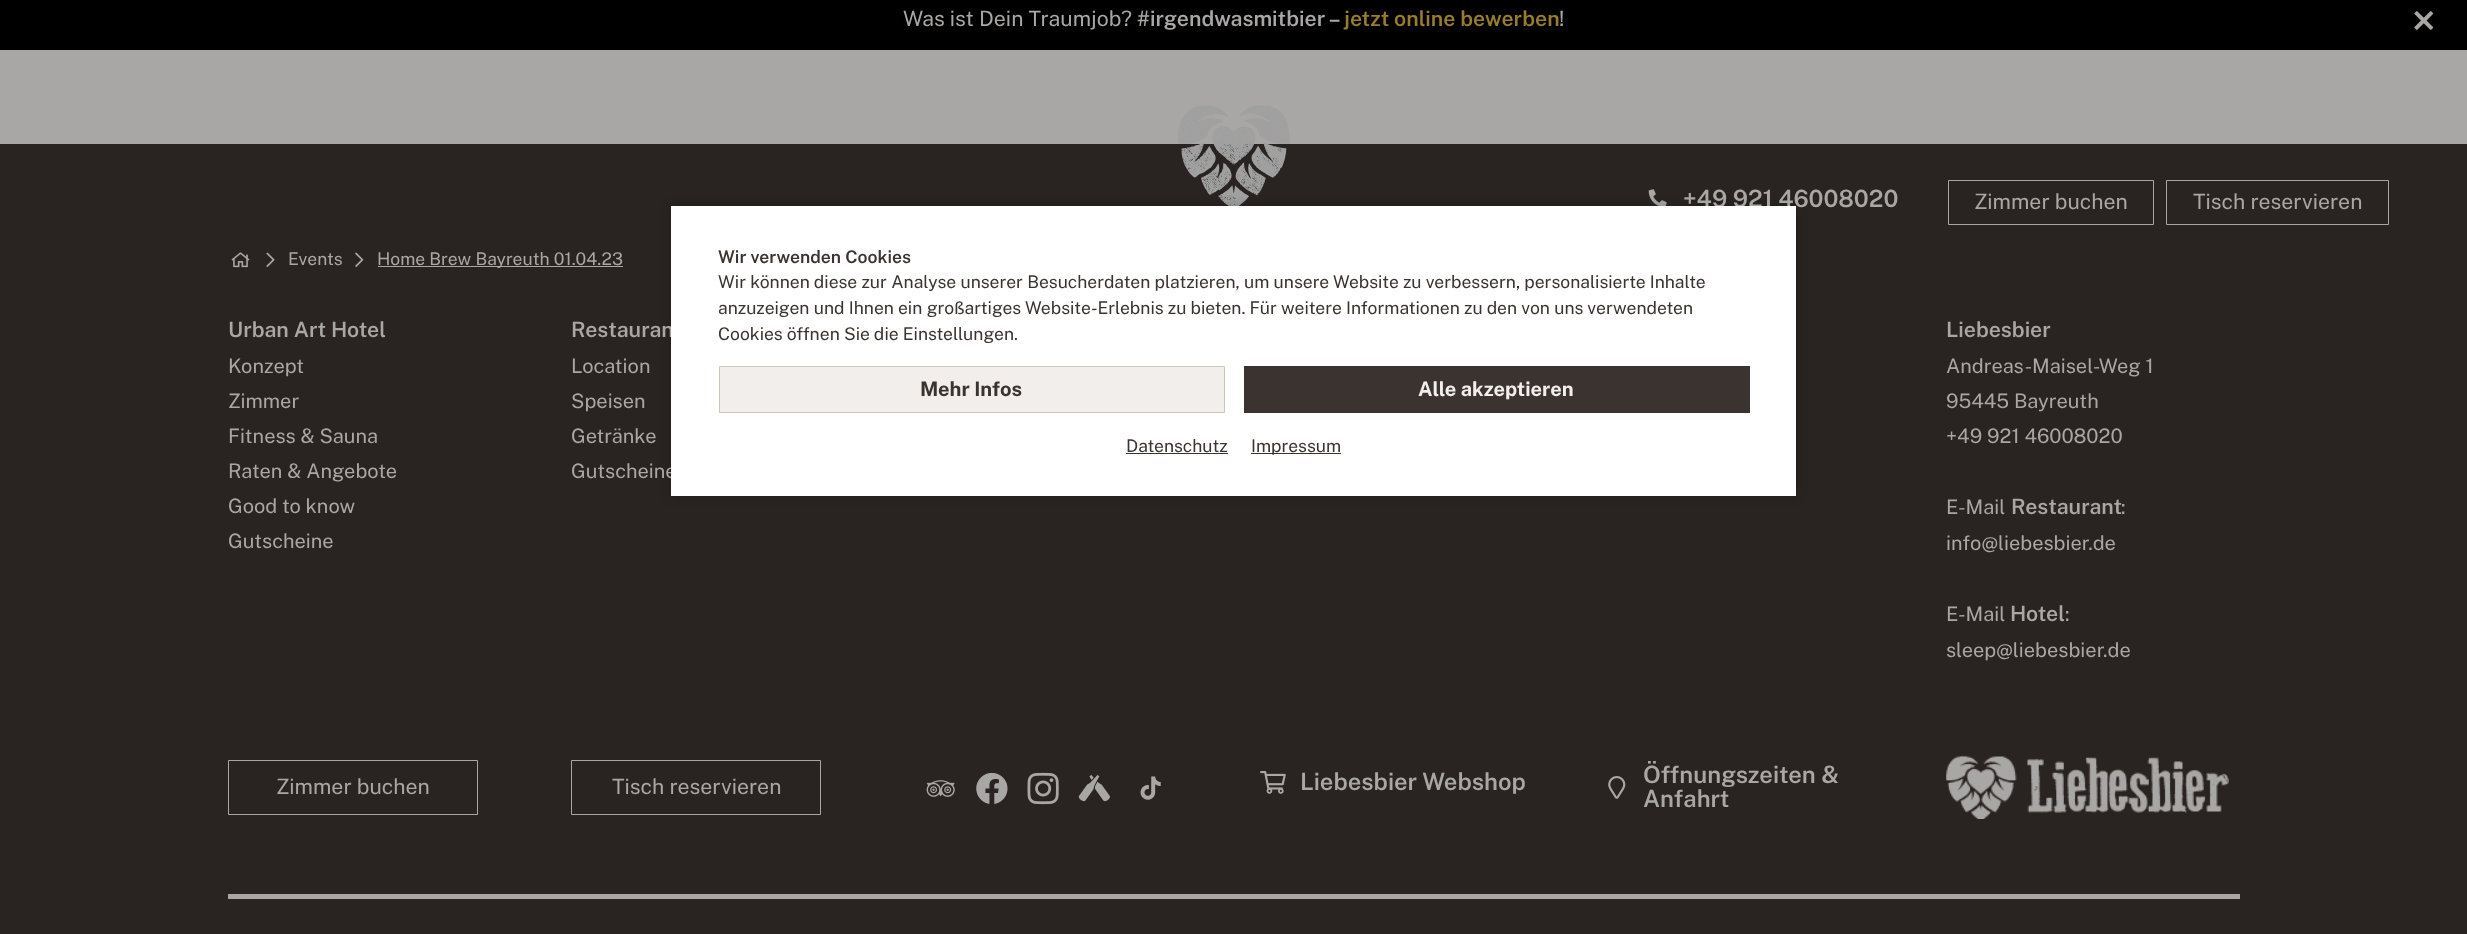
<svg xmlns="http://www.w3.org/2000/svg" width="2467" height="934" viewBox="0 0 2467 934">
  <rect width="100%" height="100%" fill="#a9a7a5"/>
  <path d="M0 0h2467v50H0z" fill="#000"/>
  <image x="2414" y="11" width="20" height="19" href="img/1.png"/>
  <path d="M0 144h2467v790H0z" fill="#292421"/>
  <image x="1178" y="105" width="112" height="101" href="img/2.png"/>
  <image x="1648" y="189" width="19" height="17" href="img/3.png"/>
  <path d="M1948.5 180.5h205v44H1948.5z" fill="none" stroke="#a9a7a5"/>
  <path d="M2166.5 180.5h222v44H2166.5z" fill="none" stroke="#a9a7a5"/>
  <image x="231" y="252" width="19" height="16" href="img/4.png"/>
  <image x="266" y="252" width="9" height="15" href="img/5.png"/>
  <image x="355" y="252" width="9" height="15" href="img/6.png"/>
  <path d="M378 266h245v1H378z" fill="#a9a7a5"/>
  <path d="M228.5 760.5h249v54H228.5z" fill="none" stroke="#a9a7a5"/>
  <path d="M571.5 760.5h249v54H571.5z" fill="none" stroke="#a9a7a5"/>
  <image x="926" y="780" width="29" height="17" href="img/7.png"/>
  <image x="976" y="772" width="32" height="32" href="img/8.png"/>
  <image x="1027" y="772" width="32" height="33" href="img/9.png"/>
  <image x="1078" y="775" width="32" height="27" href="img/10.png"/>
  <image x="1140" y="776" width="21" height="24" href="img/11.png"/>
  <image x="1260" y="771" width="26" height="23" href="img/12.png"/>
  <image x="1608" y="776" width="18" height="23" href="img/13.png"/>
  <image x="1946" y="755" width="283" height="64" href="img/14.png"/>
  <path d="M228 894h2012v5H228z" fill="#a9a7a5"/>
  <path d="M671 206h1125v290H671z" fill="#00000033" filter="blur(6px)"/>
  <text x="903" y="26" font-family="Public Sans" font-size="21.25" font-weight="100" fill="#a9a7a5">Was ist Dein Traumjob?</text>
  <text x="1137" y="26" font-family="'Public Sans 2'" font-size="21.25" font-weight="100" fill="#a9a7a5">#irgendwasmitbier –</text>
  <text x="1344" y="26" font-family="'Public Sans 2'" font-size="21.25" font-weight="100" fill="#9a7e22">jetzt online bewerben</text>
  <text x="1559" y="26" font-family="Public Sans" font-size="21.25" font-weight="100" fill="#a9a7a5">!</text>
  <text x="1683" y="207" font-family="'Public Sans 2'" font-size="23.75" font-weight="100" fill="#a9a7a5">+49 921 46008020</text>
  <g font-family="Public Sans" font-size="21.25" font-weight="100" fill="#a9a7a5">
    <text x="1974" y="209">Zimmer buchen</text>
    <text x="2193" y="209">Tisch reservieren</text>
  </g>
  <g font-family="Public Sans" font-size="17.5" font-weight="100" fill="#a9a7a5">
    <text x="288" y="265">Events</text>
    <text x="377" y="265">Home Brew Bayreuth 01.04.23</text>
  </g>
  <text x="228" y="337" font-family="'Public Sans 2'" font-size="21.25" font-weight="100" fill="#a9a7a5">Urban Art Hotel</text>
  <g font-family="Public Sans" font-size="20" font-weight="100" fill="#a9a7a5">
    <text x="228" y="373">Konzept</text>
    <text x="228" y="408">Zimmer</text>
    <text x="228" y="443">Fitness &amp; Sauna</text>
    <text x="228" y="478">Raten &amp; Angebote</text>
    <text x="228" y="513">Good to know</text>
    <text x="228" y="548">Gutscheine</text>
  </g>
  <text x="571" y="337" font-family="'Public Sans 2'" font-size="21.25" font-weight="100" fill="#a9a7a5">Restauran</text>
  <g font-family="Public Sans" font-size="20" font-weight="100" fill="#a9a7a5">
    <text x="571" y="373">Location</text>
    <text x="571" y="408">Speisen</text>
    <text x="571" y="443">Getränke</text>
    <text x="571" y="478">Gutscheine</text>
  </g>
  <text x="1946" y="337" font-family="'Public Sans 2'" font-size="21.25" font-weight="100" fill="#a9a7a5">Liebesbier</text>
  <g font-family="Public Sans" font-size="20" font-weight="100" fill="#a9a7a5">
    <text x="1946" y="373">Andreas-Maisel-Weg 1</text>
    <text x="1946" y="408">95445 Bayreuth</text>
    <text x="1946" y="443">+49 921 46008020</text>
    <text x="1946" y="514">E-Mail</text>
  </g>
  <text x="2011" y="514" font-family="'Public Sans 2'" font-size="21.25" font-weight="100" fill="#a9a7a5">Restaurant</text>
  <g font-family="Public Sans" font-size="20" font-weight="100" fill="#a9a7a5">
    <text x="2121" y="514">:</text>
    <text x="1946" y="550">info@liebesbier.de</text>
    <text x="1946" y="621">E-Mail</text>
  </g>
  <text x="2010" y="621" font-family="'Public Sans 2'" font-size="21.25" font-weight="100" fill="#a9a7a5">Hotel</text>
  <g font-family="Public Sans" font-size="20" font-weight="100" fill="#a9a7a5">
    <text x="2065" y="621">:</text>
    <text x="1946" y="657">sleep@liebesbier.de</text>
  </g>
  <g font-family="Public Sans" font-size="21.25" font-weight="100" fill="#a9a7a5">
    <text x="276" y="794">Zimmer buchen</text>
    <text x="612" y="794">Tisch reservieren</text>
  </g>
  <g font-family="'Public Sans 2'" font-size="23.75" font-weight="100" fill="#a9a7a5">
    <text x="1300" y="790">Liebesbier Webshop</text>
    <text x="1643" y="783">Öffnungszeiten &amp;</text>
    <text x="1643" y="807">Anfahrt</text>
  </g>
  <path d="M671 206h1125v290H671z" fill="#fff"/>
  <text x="718" y="263" font-family="'Public Sans 2'" font-size="17.5" font-weight="100" fill="#3b332f">Wir verwenden Cookies</text>
  <g font-family="Public Sans" font-size="17.5" font-weight="100" fill="#3b332f">
    <text x="718" y="288">Wir können diese zur Analyse unserer Besucherdaten platzieren, um unsere Website zu verbessern, personalisierte Inhalte</text>
    <text x="718" y="314">anzuzeigen und Ihnen ein großartiges Website-Erlebnis zu bieten. Für weitere Informationen zu den von uns verwendeten</text>
    <text x="718" y="340">Cookies öffnen Sie die Einstellungen.</text>
  </g>
  <path d="M719.5 366.5h505v46H719.5z" fill="#f1eeeb" stroke="#ccc5bb"/>
  <text x="920" y="396" font-family="'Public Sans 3'" font-size="20" font-weight="100" fill="#3b332f">Mehr Infos</text>
  <path d="M1244 366h506v47H1244z" fill="#3b332f"/>
  <text x="1418" y="396" font-family="'Public Sans 3'" font-size="20" font-weight="100" fill="#f1eeeb">Alle akzeptieren</text>
  <text x="1126" y="452" font-family="Public Sans" font-size="17.5" font-weight="100" fill="#3b332f">Datenschutz</text>
  <path d="M1126 453h102v1H1126z" fill="#3b332f"/>
  <path d="M1251 453h90v1H1251z" fill="#3b332f"/>
  <text x="1251" y="452" font-family="Public Sans" font-size="17.5" font-weight="100" fill="#3b332f">Impressum</text>
</svg>
